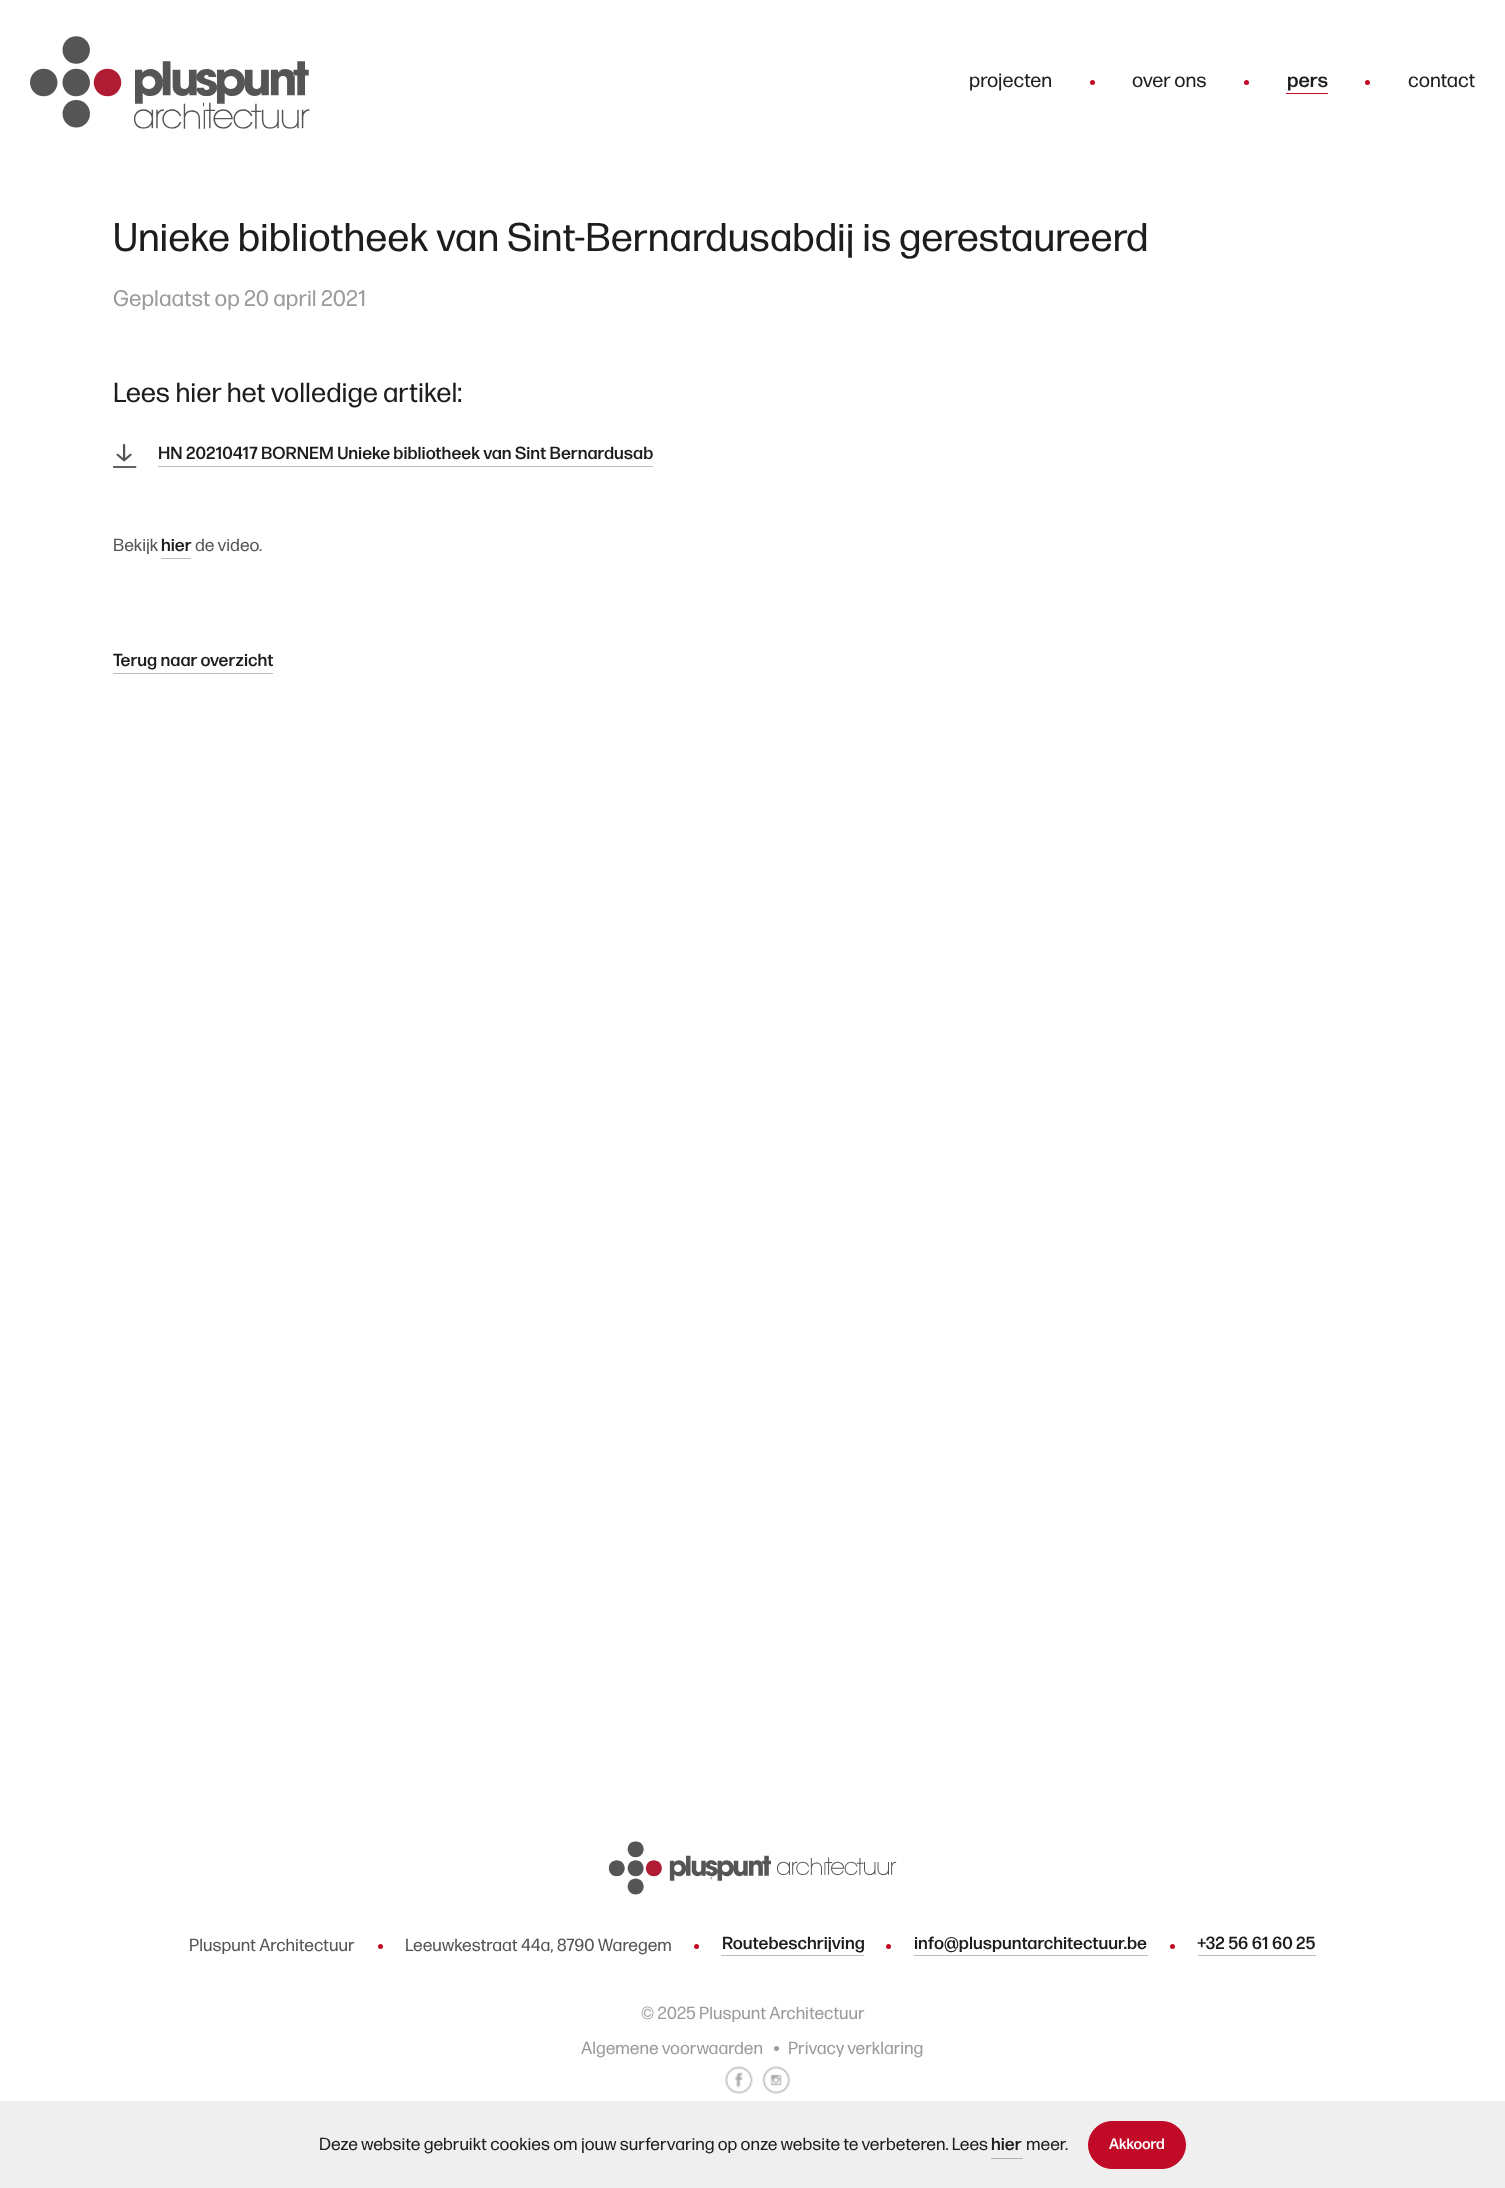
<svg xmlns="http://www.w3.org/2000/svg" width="1505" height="2188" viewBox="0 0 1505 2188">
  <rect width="100%" height="100%" fill="#fff"/>
  <image x="30" y="36" width="280" height="93" href="img/1.png"/>
  <circle cx="1092.5" cy="82.5" r="2.5" fill="#c10a27"/>
  <circle cx="1246.5" cy="82.5" r="2.5" fill="#c10a27"/>
  <path d="M1286 93h42v1H1286z" fill="#c10a27"/>
  <circle cx="1367.5" cy="82.5" r="2.5" fill="#c10a27"/>
  <image x="113" y="444" width="24" height="24" href="img/2.png"/>
  <path d="M158 466h495v1H158z" fill="#bcbcbb"/>
  <path d="M161 558h30v1H161z" fill="#bcbcbb"/>
  <path d="M113 673h160v1H113z" fill="#bcbcbb"/>
  <image x="608" y="1841" width="289" height="54" href="img/3.png"/>
  <circle cx="380.5" cy="1946.5" r="2.5" fill="#c10a27"/>
  <circle cx="696.5" cy="1946.5" r="2.5" fill="#c10a27"/>
  <path d="M721 1955h143v1H721z" fill="#bcbcbb"/>
  <circle cx="888.5" cy="1946.5" r="2.5" fill="#c10a27"/>
  <path d="M914 1955h234v1H914z" fill="#bcbcbb"/>
  <circle cx="1172.5" cy="1946.5" r="2.5" fill="#c10a27"/>
  <path d="M1198 1955h118v1H1198z" fill="#bcbcbb"/>
  <circle cx="776.5" cy="2048.5" r="2.5" fill="#9b9b9b"/>
  <image x="725" y="2066" width="28" height="28" href="img/4.png"/>
  <image x="762" y="2066" width="28" height="28" href="img/5.png"/>
  <path d="M0 2101h1505v87H0z" fill="#efefef"/>
  <path d="M991 2158h32v1H991z" fill="#b0b0b0"/>
  <rect x="1088.5" y="2121.5" width="97" height="47" rx="23.5" fill="#c10a27" stroke="#c10a27"/>
  <g font-family="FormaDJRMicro" font-size="20" fill="#1e1d1d">
    <text x="969" y="87">projecten</text>
    <text x="1132" y="87">over ons</text>
  </g>
  <text x="1287" y="87" font-family="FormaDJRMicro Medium" font-size="20" font-weight="500" fill="#1e1d1d">pers</text>
  <text x="1408" y="87" font-family="FormaDJRMicro" font-size="20" fill="#1e1d1d">contact</text>
  <text x="113" y="251" font-family="FormaDJRMicro" font-size="40" fill="#1e1d1d">Unieke bibliotheek van Sint-Bernardusabdij is gerestaureerd</text>
  <text x="113" y="306" font-family="FormaDJRMicro" font-size="22.5" fill="#9b9b9b">Geplaatst op 20 april 2021</text>
  <text x="113" y="402" font-family="FormaDJRMicro" font-size="27.5" fill="#1e1d1d">Lees hier het volledige artikel:</text>
  <text x="158" y="459" font-family="FormaDJRMicro Medium" font-size="17.5" font-weight="500" fill="#1e1d1d">HN 20210417 BORNEM Unieke bibliotheek van Sint Bernardusab</text>
  <text x="113" y="551" font-family="FormaDJRMicro" font-size="17.5" fill="#545554">Bekijk</text>
  <text x="161" y="551" font-family="FormaDJRMicro Medium" font-size="17.5" font-weight="500" fill="#1e1d1d">hier</text>
  <text x="195" y="551" font-family="FormaDJRMicro" font-size="17.5" fill="#545554">de video.</text>
  <text x="113" y="666" font-family="FormaDJRMicro Medium" font-size="17.5" font-weight="500" fill="#1e1d1d">Terug naar overzicht</text>
  <g font-family="FormaDJRMicro" font-size="17.5" fill="#545554">
    <text x="189" y="1951">Pluspunt Architectuur</text>
    <text x="405" y="1951">Leeuwkestraat 44a, 8790 Waregem</text>
  </g>
  <g font-family="FormaDJRMicro Medium" font-size="17.5" font-weight="500" fill="#1e1d1d">
    <text x="722" y="1949">Routebeschrijving</text>
    <text x="914" y="1949">info@pluspuntarchitectuur.be</text>
    <text x="1197" y="1949">+32 56 61 60 25</text>
  </g>
  <g font-family="FormaDJRMicro" font-size="17.5" fill="#9b9b9b">
    <text x="641" y="2019">© 2025 Pluspunt Architectuur</text>
    <text x="581" y="2054">Algemene voorwaarden</text>
    <text x="788" y="2054">Privacy verklaring</text>
  </g>
  <text x="319" y="2150" font-family="FormaDJRMicro" font-size="17.5" fill="#1e1d1d">Deze website gebruikt cookies om jouw surfervaring op onze website te verbeteren. Lees</text>
  <text x="991" y="2150" font-family="FormaDJRMicro Medium" font-size="17.5" font-weight="500" fill="#1e1d1d">hier</text>
  <text x="1026" y="2150" font-family="FormaDJRMicro" font-size="17.5" fill="#1e1d1d">meer.</text>
  <text x="1109" y="2149" font-family="FormaDJRMicro Medium" font-size="15" font-weight="500" fill="#fff">Akkoord</text>
</svg>
